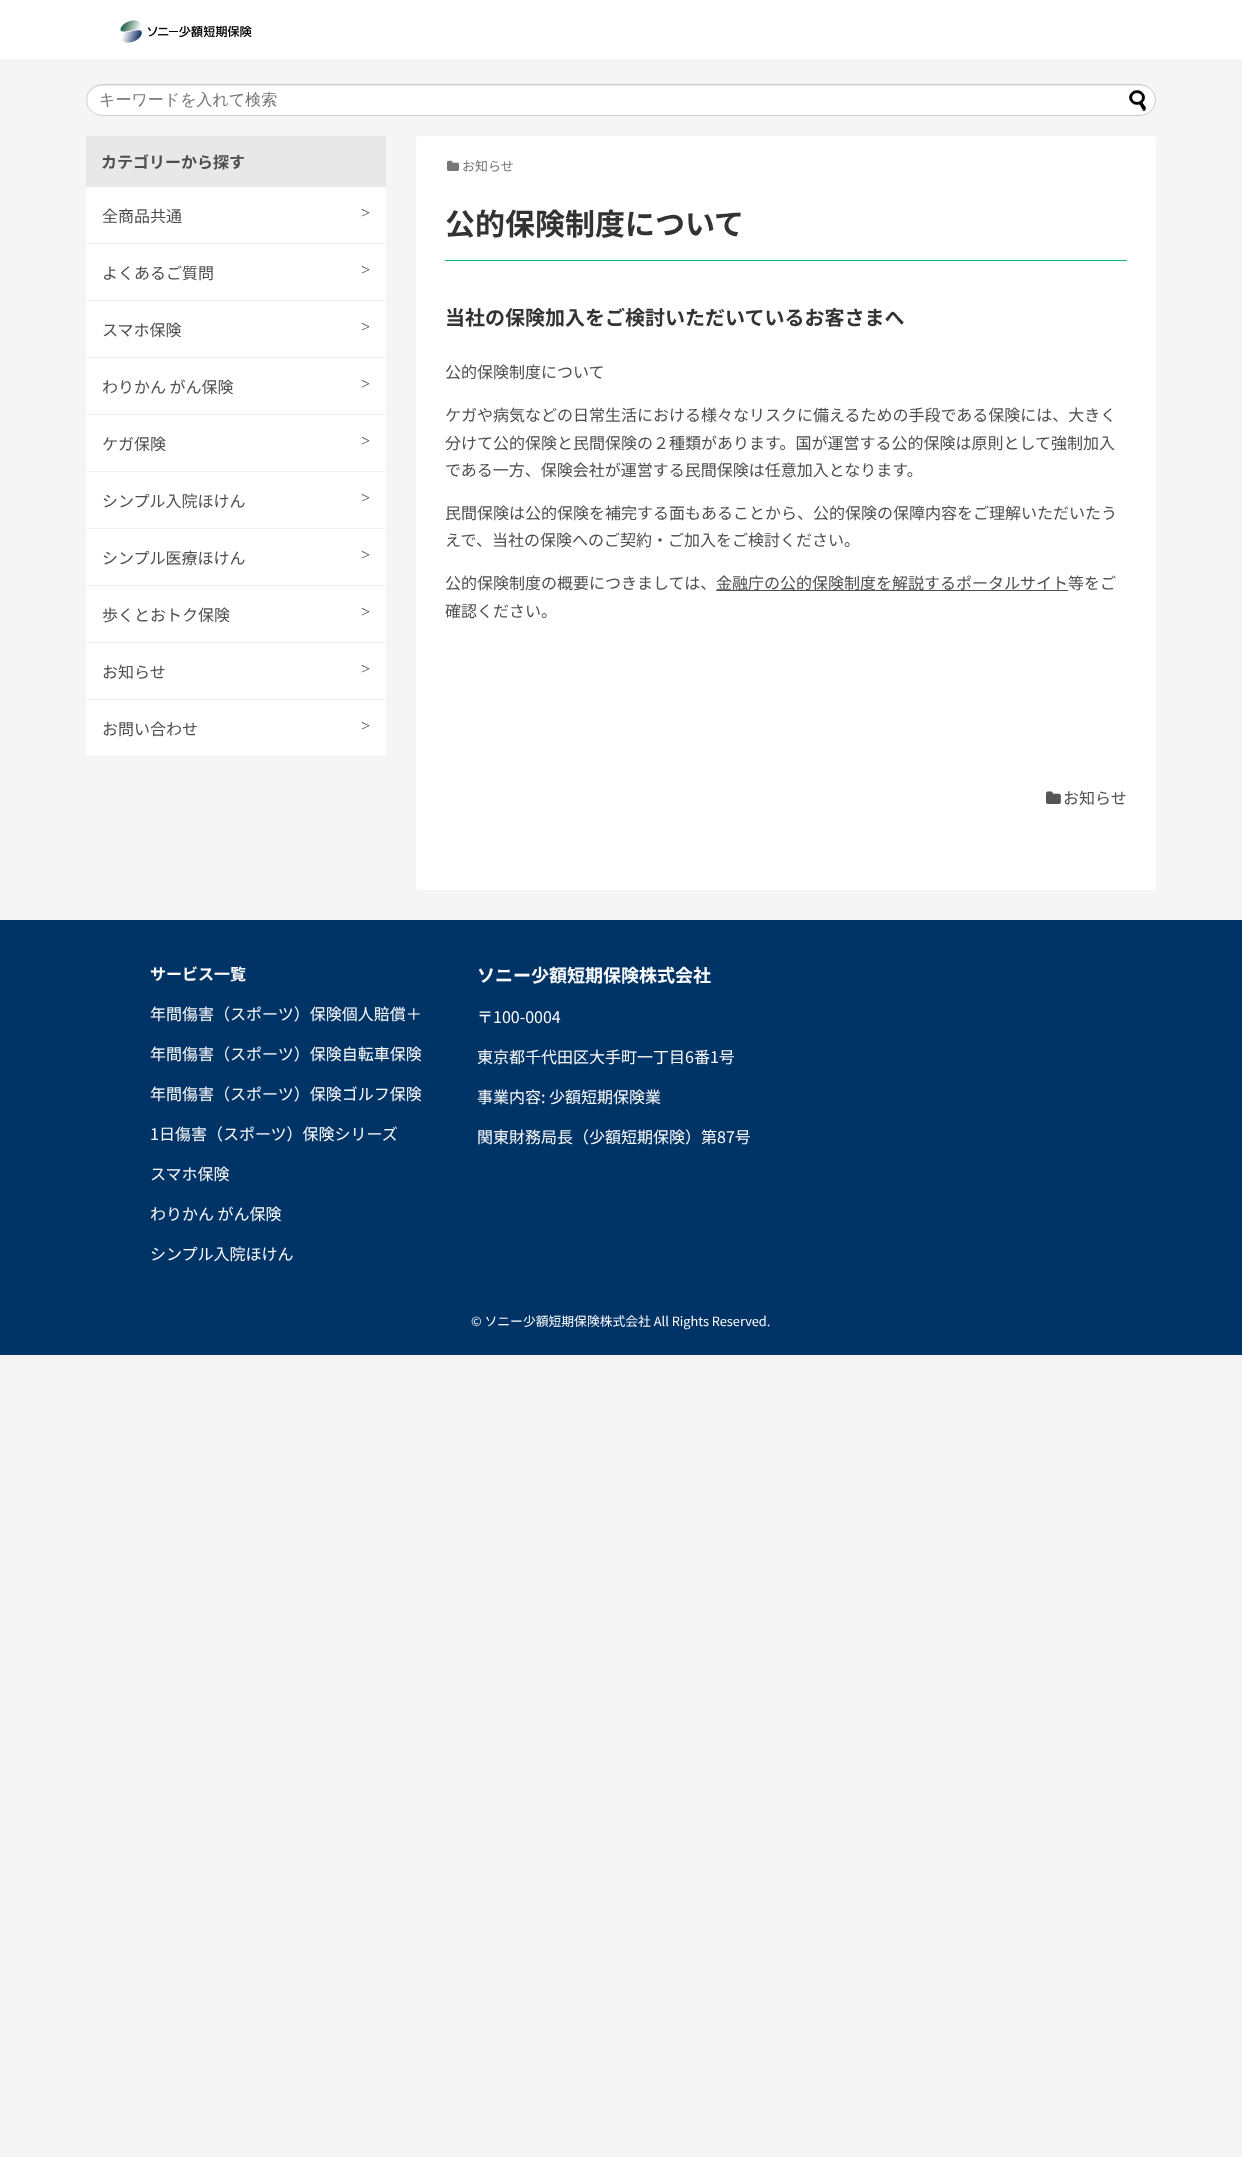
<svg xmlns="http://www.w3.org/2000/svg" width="1242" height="2157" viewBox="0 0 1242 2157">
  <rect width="100%" height="100%" fill="#f5f5f5"/>
  <path d="M0 0h1242v59H0z" fill="#fff"/>
  <image x="120" y="20" width="132" height="23" href="img/1.png"/>
  <rect x="86" y="84" width="1070" height="32" rx="16" fill="#fff"/>
  <path d="M102 86H1140C1148 86 1155 93 1155 101C1155 92 1148 85 1140 85H102C94 85 87 92 87 101C87 93 94 86 102 86Z" fill="#ececec"/>
  <rect x="86.5" y="84.5" width="1069" height="31" rx="15.5" fill="none" stroke="#ccc"/>
  <image x="1129" y="90" width="17" height="21" href="img/2.png"/>
  <path d="M86 187h300v569H86z" fill="#fff"/>
  <path d="M86 136h300v51H86z" fill="#e8e8e8"/>
  <path d="M86 243h300v1H86z" fill="#f0f0f0"/>
  <path d="M86 300h300v1H86z" fill="#f0f0f0"/>
  <path d="M86 357h300v1H86z" fill="#f0f0f0"/>
  <path d="M86 414h300v1H86z" fill="#f0f0f0"/>
  <path d="M86 471h300v1H86z" fill="#f0f0f0"/>
  <path d="M86 528h300v1H86z" fill="#f0f0f0"/>
  <path d="M86 585h300v1H86z" fill="#f0f0f0"/>
  <path d="M86 642h300v1H86z" fill="#f0f0f0"/>
  <path d="M86 699h300v1H86z" fill="#f0f0f0"/>
  <path d="M86 756h300v1H86z" fill="#f0f0f0"/>
  <rect x="416" y="136" width="740" height="754" rx="4" fill="#fff"/>
  <image x="447" y="160" width="13" height="11" href="img/3.png"/>
  <path d="M445 260h682v1H445z" fill="#00ba81"/>
  <path d="M716 590h352v1H716z" fill="#4e4e4e"/>
  <image x="1046" y="791" width="15" height="13" href="img/4.png"/>
  <path d="M0 920h1242v435H0z" fill="#036"/>
  <text x="99" y="105" font-family="WenQuanYi Zen Hei" font-size="16" font-weight="500" fill="#757575">キーワードを入れて検索</text>
  <text x="101" y="168" font-family="Noto Sans JP" font-size="16" font-weight="bold" fill="#4e4e4e">カテゴリーから探す</text>
  <text x="102" y="222" font-family="Noto Sans JP" font-size="16" fill="#4e4e4e">全商品共通</text>
  <text x="361" y="218" font-family="Liberation Serif" font-size="16" fill="#4e4e4e">&gt;</text>
  <text x="102" y="279" font-family="Noto Sans JP" font-size="16" fill="#4e4e4e">よくあるご質問</text>
  <text x="361" y="275" font-family="Liberation Serif" font-size="16" fill="#4e4e4e">&gt;</text>
  <text x="102" y="336" font-family="Noto Sans JP" font-size="16" fill="#4e4e4e">スマホ保険</text>
  <text x="361" y="332" font-family="Liberation Serif" font-size="16" fill="#4e4e4e">&gt;</text>
  <text x="102" y="393" font-family="Noto Sans JP" font-size="16" fill="#4e4e4e">わりかん がん保険</text>
  <text x="361" y="389" font-family="Liberation Serif" font-size="16" fill="#4e4e4e">&gt;</text>
  <text x="102" y="450" font-family="Noto Sans JP" font-size="16" fill="#4e4e4e">ケガ保険</text>
  <text x="361" y="446" font-family="Liberation Serif" font-size="16" fill="#4e4e4e">&gt;</text>
  <text x="102" y="507" font-family="Noto Sans JP" font-size="16" fill="#4e4e4e">シンプル入院ほけん</text>
  <text x="361" y="503" font-family="Liberation Serif" font-size="16" fill="#4e4e4e">&gt;</text>
  <text x="102" y="564" font-family="Noto Sans JP" font-size="16" fill="#4e4e4e">シンプル医療ほけん</text>
  <text x="361" y="560" font-family="Liberation Serif" font-size="16" fill="#4e4e4e">&gt;</text>
  <text x="102" y="621" font-family="Noto Sans JP" font-size="16" fill="#4e4e4e">歩くとおトク保険</text>
  <text x="361" y="617" font-family="Liberation Serif" font-size="16" fill="#4e4e4e">&gt;</text>
  <text x="102" y="678" font-family="Noto Sans JP" font-size="16" fill="#4e4e4e">お知らせ</text>
  <text x="361" y="674" font-family="Liberation Serif" font-size="16" fill="#4e4e4e">&gt;</text>
  <text x="102" y="735" font-family="Noto Sans JP" font-size="16" fill="#4e4e4e">お問い合わせ</text>
  <text x="361" y="731" font-family="Liberation Serif" font-size="16" fill="#4e4e4e">&gt;</text>
  <text x="462" y="171" font-family="Noto Sans JP" font-size="13" fill="#757575">お知らせ</text>
  <text x="445" y="235" font-family="Noto Sans JP" font-size="30" font-weight="bold" fill="#333">公的保険制度について</text>
  <text x="445" y="325" font-family="Noto Sans JP" font-size="20" font-weight="bold" fill="#333">当社の保険加入をご検討いただいているお客さまへ</text>
  <g font-family="Noto Sans JP" font-size="16" fill="#4e4e4e">
    <text x="445" y="378">公的保険制度について</text>
    <text x="445" y="421">ケガや病気などの日常生活における様々なリスクに備えるための手段である保険には、大きく</text>
    <text x="445" y="449">分けて公的保険と民間保険の２種類があります。国が運営する公的保険は原則として強制加入</text>
    <text x="445" y="476">である一方、保険会社が運営する民間保険は任意加入となります。</text>
    <text x="445" y="519">民間保険は公的保険を補完する面もあることから、公的保険の保障内容をご理解いただいたう</text>
    <text x="445" y="546">えで、当社の保険へのご契約・ご加入をご検討ください。</text>
    <text x="445" y="589">公的保険制度の概要につきましては、</text>
    <text x="716" y="589">金融庁の公的保険制度を解説するポータルサイト等をご</text>
    <text x="445" y="617">確認ください。</text>
    <text x="1063" y="804">お知らせ</text>
  </g>
  <text x="150" y="980" font-family="Noto Sans JP" font-size="16" font-weight="bold" fill="#fcfcfc">サービス一覧</text>
  <g font-family="Noto Sans JP" font-size="16" fill="#fcfcfc">
    <text x="150" y="1020">年間傷害（スポーツ）保険個人賠償＋</text>
    <text x="150" y="1060">年間傷害（スポーツ）保険自転車保険</text>
    <text x="150" y="1100">年間傷害（スポーツ）保険ゴルフ保険</text>
    <text x="150" y="1140">1日傷害（スポーツ）保険シリーズ</text>
    <text x="150" y="1180">スマホ保険</text>
    <text x="150" y="1220">わりかん がん保険</text>
    <text x="150" y="1260">シンプル入院ほけん</text>
  </g>
  <text x="477" y="982" font-family="Noto Sans JP" font-size="18" font-weight="bold" fill="#fcfcfc">ソニー少額短期保険株式会社</text>
  <g font-family="Noto Sans JP" font-size="16" fill="#fcfcfc">
    <text x="477" y="1023">〒100-0004</text>
    <text x="477" y="1063">東京都千代田区大手町一丁目6番1号</text>
    <text x="477" y="1103">事業内容: 少額短期保険業</text>
    <text x="477" y="1143">関東財務局長（少額短期保険）第87号</text>
  </g>
  <text x="471" y="1326" font-family="Noto Sans JP" font-size="12.8" fill="#fcfcfc">© ソニー少額短期保険株式会社 All Rights Reserved.</text>
</svg>
